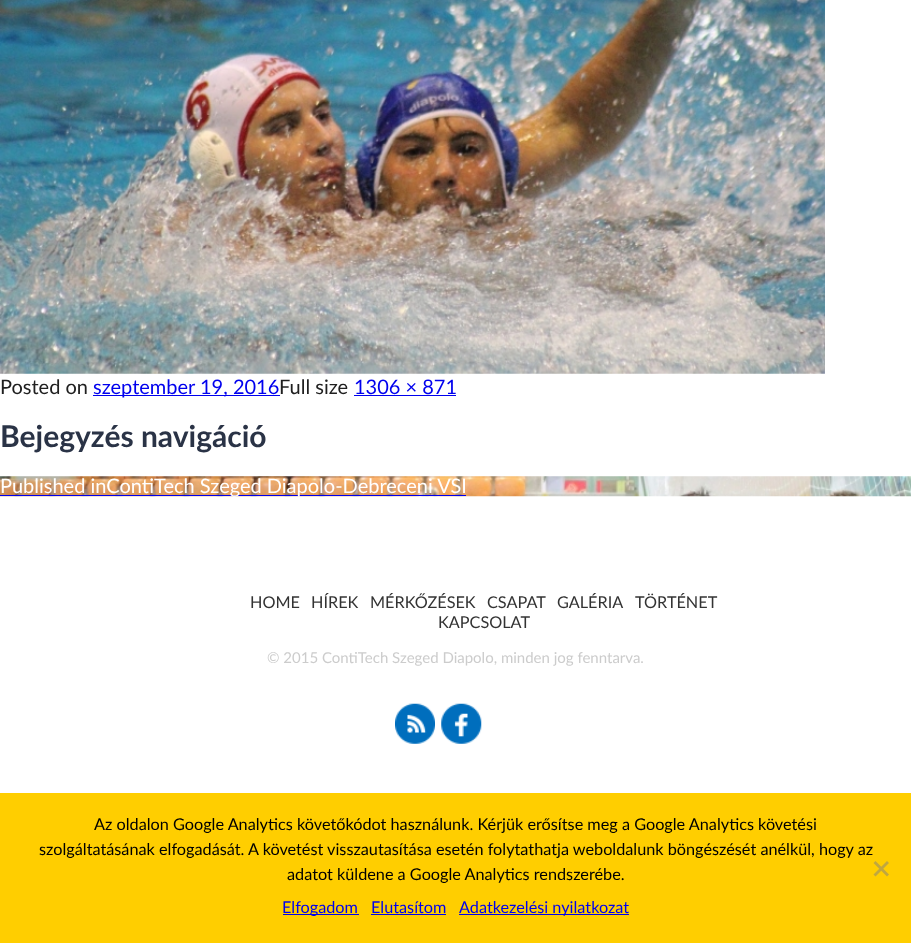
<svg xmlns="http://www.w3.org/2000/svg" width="911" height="943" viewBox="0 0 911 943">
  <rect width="100%" height="100%" fill="#fff"/>
  <image x="0" y="0" width="825" height="374" href="img/1.png"/>
  <path d="M93 395h187v1H93z" fill="#00e"/>
  <path d="M354 395h102v1H354z" fill="#00e"/>
  <image x="0" y="476" width="911" height="21" href="img/2.png"/>
  <path d="M0 495h466v1H0z" fill="#00e"/>
  <image x="395" y="703" width="40" height="41" href="img/3.png"/>
  <image x="441" y="703" width="41" height="41" href="img/4.png"/>
  <path d="M0 793h911v150H0z" fill="#ffce00"/>
  <path d="M887 861L889 863L875.5 876.5L873.5 874.5Z" fill="#c0a740"/>
  <path d="M873.5 863L875.5 861L889 874.5L887 876.5Z" fill="#c0a740"/>
  <path d="M283 914h76v1H283z" fill="#00e"/>
  <path d="M371 914h75v1H371z" fill="#00e"/>
  <path d="M459 914h170v1H459z" fill="#00e"/>
  <text x="0" y="394" font-family="Lato" font-size="20" fill="#202020">Posted on</text>
  <text x="93" y="394" font-family="Lato" font-size="20" fill="#00e">szeptember 19, 2016</text>
  <text x="279" y="394" font-family="Lato" font-size="20" fill="#202020">Full size</text>
  <text x="354" y="394" font-family="Lato" font-size="20" fill="#00e">1306 × 871</text>
  <text x="0" y="447" font-family="Lato" font-size="30" font-weight="bold" fill="#2a3346">Bejegyzés navigáció</text>
  <text x="0" y="493" font-family="Lato" font-size="20" fill="#fff">Published inContiTech Szeged Diapolo-Debreceni VSI</text>
  <g font-family="Lato" font-size="16.25" fill="#333">
    <text x="250" y="608">HOME</text>
    <text x="311" y="608">HÍREK</text>
    <text x="370" y="608">MÉRKŐZÉSEK</text>
    <text x="487" y="608">CSAPAT</text>
    <text x="557" y="608">GALÉRIA</text>
    <text x="635" y="608">TÖRTÉNET</text>
    <text x="438" y="628">KAPCSOLAT</text>
  </g>
  <text x="267" y="663" font-family="Lato" font-size="15" fill="#ccc">© 2015 ContiTech Szeged Diapolo, minden jog fenntarva.</text>
  <g font-family="Lato" font-size="16.25" fill="#000">
    <text x="94" y="830">Az oldalon Google Analytics követőkódot használunk. Kérjük erősítse meg a Google Analytics követési</text>
    <text x="39" y="855">szolgáltatásának elfogadását. A követést visszautasítása esetén folytathatja weboldalunk böngészését anélkül, hogy az</text>
    <text x="287" y="880">adatot küldene a Google Analytics rendszerébe.</text>
  </g>
  <g font-family="Lato" font-size="16.25" fill="#00e">
    <text x="282" y="913">Elfogadom</text>
    <text x="371" y="913">Elutasítom</text>
    <text x="459" y="913">Adatkezelési nyilatkozat</text>
  </g>
</svg>
